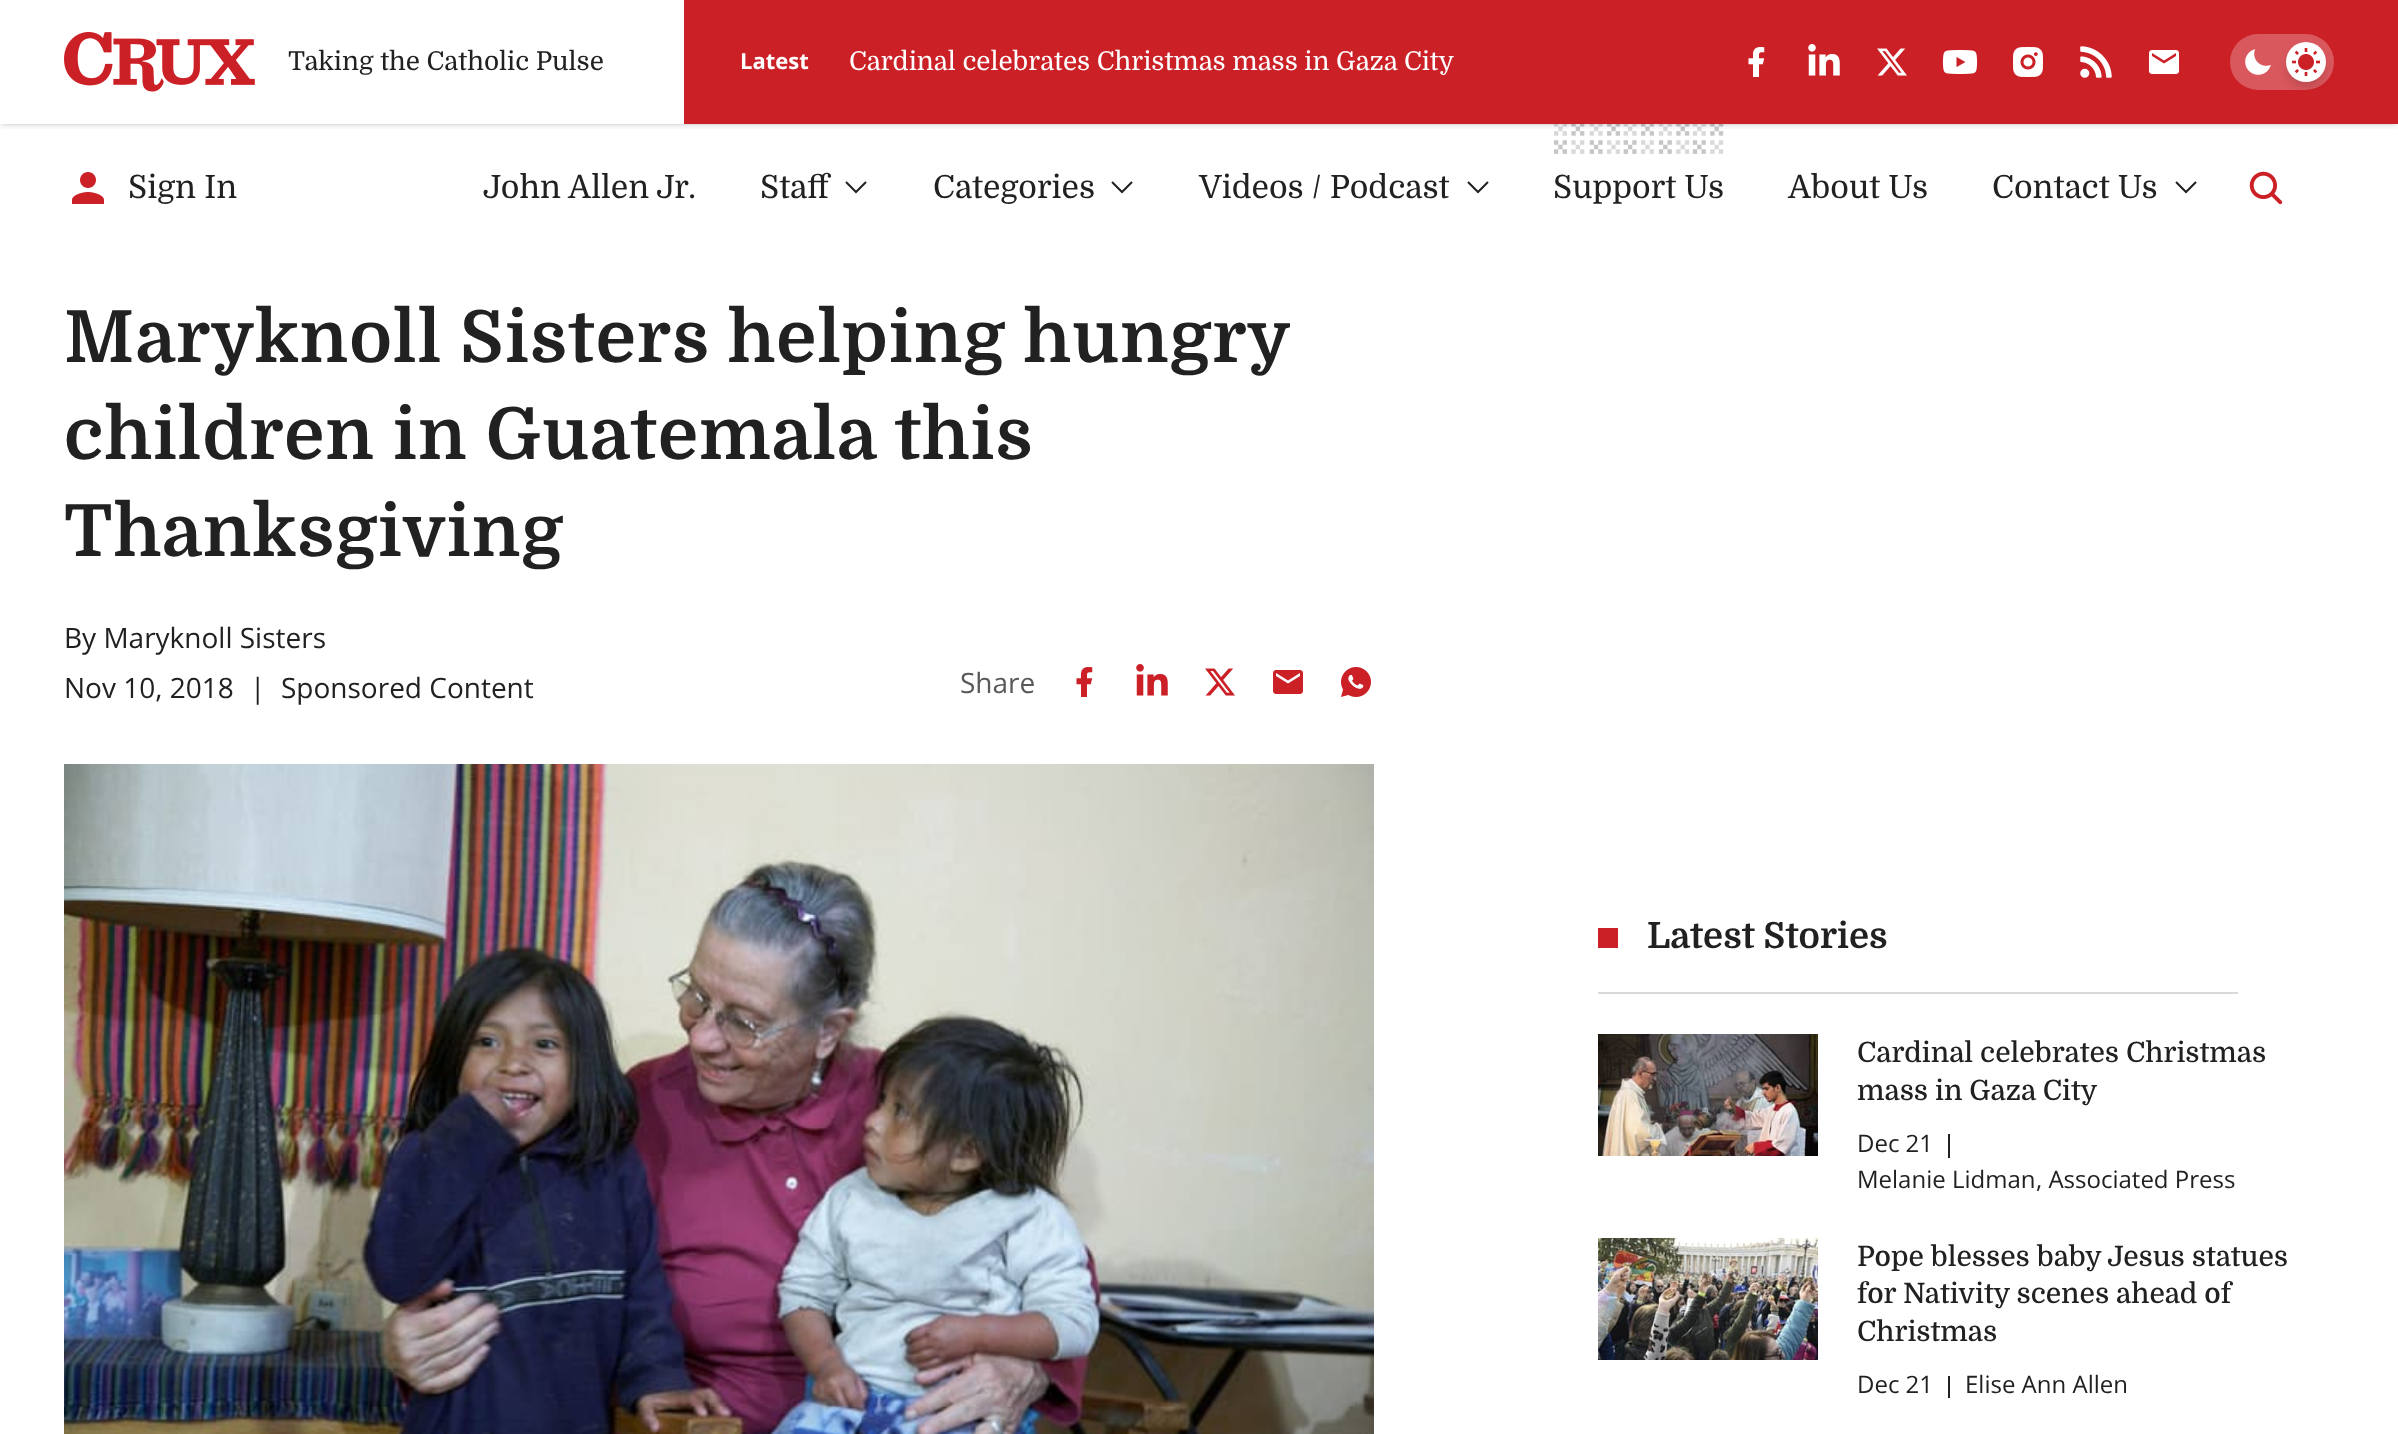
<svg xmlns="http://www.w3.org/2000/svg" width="2398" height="1434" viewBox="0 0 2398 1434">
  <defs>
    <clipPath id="clip1"><path d="M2 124h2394v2H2z"/></clipPath>
    <clipPath id="clip2"><path d="M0 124h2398v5H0z"/></clipPath>
    <clipPath id="clip3"><path d="M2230 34h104v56H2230z"/></clipPath>
  </defs>
  <rect width="100%" height="100%" fill="#fff"/>
  <image x="1554" y="124" width="170" height="30" href="img/12.png"/>
  <g clip-path="url(#clip1)">
    <path d="M2 4h2394v120H2z" fill="#0000001a" filter="blur(2px)"/>
  </g>
  <g clip-path="url(#clip2)">
    <path d="M0 2h2398v124H0z" fill="#0000001a" filter="blur(3px)"/>
  </g>
  <image x="64" y="32" width="191" height="60" href="img/1.png"/>
  <path d="M684 0h1714v124H684z" fill="#cc2027"/>
  <image x="1748" y="47" width="17" height="30" href="img/2.png"/>
  <image x="1808" y="44" width="32" height="32" href="img/3.png"/>
  <image x="1877" y="48" width="30" height="28" href="img/4.png"/>
  <image x="1942" y="50" width="36" height="24" href="img/5.png"/>
  <image x="2013" y="47" width="30" height="30" href="img/6.png"/>
  <image x="2080" y="46" width="32" height="32" href="img/7.png"/>
  <image x="2149" y="50" width="30" height="24" href="img/8.png"/>
  <rect x="2230" y="34" width="104" height="56" rx="28" fill="#d9585d"/>
  <rect x="2290" y="50" width="32" height="32" rx="16" fill="#0000001a" filter="blur(4px)"/>
  <g clip-path="url(#clip3)">
    <rect x="2288" y="52" width="36" height="36" rx="18" fill="#0000001a" filter="blur(6px)"/>
  </g>
  <circle cx="2306" cy="62" r="20" fill="#fff"/>
  <image x="2245" y="49" width="26" height="26" href="img/9.png"/>
  <image x="2292" y="48" width="28" height="28" href="img/10.png"/>
  <image x="72" y="172" width="32" height="32" href="img/11.png"/>
  <path d="M846 182L856 192L866 182" fill="none" stroke="#212121" stroke-width="2"/>
  <path d="M1112 182L1122 192L1132 182" fill="none" stroke="#212121" stroke-width="2"/>
  <path d="M1468 182L1478 192L1488 182" fill="none" stroke="#212121" stroke-width="2"/>
  <path d="M2176 182L2186 192L2196 182" fill="none" stroke="#212121" stroke-width="2"/>
  <image x="2249" y="171" width="34" height="34" href="img/13.png"/>
  <image x="1076" y="667" width="17" height="30" href="img/14.png"/>
  <image x="1136" y="664" width="32" height="32" href="img/15.png"/>
  <image x="1205" y="668" width="30" height="28" href="img/16.png"/>
  <image x="1273" y="670" width="30" height="24" href="img/17.png"/>
  <image x="1341" y="667" width="30" height="30" href="img/18.png"/>
  <image x="64" y="764" width="1310" height="670" href="img/19.png"/>
  <path d="M1598 992h640v2H1598z" fill="#d9d9d9"/>
  <path d="M1598 928h20v20H1598z" fill="#cc2027"/>
  <image x="1598" y="1034" width="220" height="122" href="img/20.png"/>
  <path d="M1948 1134h2v24H1948z" fill="#212121"/>
  <image x="1598" y="1238" width="220" height="122" href="img/21.png"/>
  <path d="M1948 1376h2v22H1948z" fill="#212121"/>
  <text x="288" y="70" font-family="Domine" font-size="26" fill="#212121">Taking the Catholic Pulse</text>
  <text x="740" y="69" font-family="Open Sans" font-size="22" font-weight="bold" fill="#fff">Latest</text>
  <text x="849" y="70" font-family="Domine" font-size="26" fill="#fff">Cardinal celebrates Christmas mass in Gaza City</text>
  <g font-family="Domine" font-size="32" fill="#212121">
    <text x="128" y="198">Sign In</text>
    <text x="483" y="198">John Allen Jr.</text>
    <text x="760" y="198">Staff</text>
    <text x="933" y="198">Categories</text>
    <text x="1199" y="198">Videos / Podcast</text>
    <text x="1553" y="198">Support Us</text>
    <text x="1788" y="198">About Us</text>
    <text x="1992" y="198">Contact Us</text>
  </g>
  <g font-family="Domine" font-size="72" font-weight="bold" letter-spacing="1.1" fill="#212121">
    <text x="64" y="362" word-spacing="-0.5">Maryknoll Sisters helping hungry</text>
    <text x="64" y="459">children in Guatemala this</text>
    <text x="64" y="556">Thanksgiving</text>
  </g>
  <g font-family="Open Sans" font-size="28" fill="#212121">
    <text x="64" y="648">By Maryknoll Sisters</text>
    <text x="64" y="698">Nov 10, 2018</text>
    <text x="250" y="698">|</text>
    <text x="281" y="698">Sponsored Content</text>
  </g>
  <text x="960" y="693" font-family="Open Sans" font-size="28" fill="#57595b">Share</text>
  <text x="1647" y="948" font-family="Domine" font-size="36" font-weight="bold" fill="#212121">Latest Stories</text>
  <g font-family="Domine" font-size="28" font-weight="500" fill="#212121">
    <text x="1857" y="1062">Cardinal celebrates Christmas</text>
    <text x="1857" y="1100">mass in Gaza City</text>
  </g>
  <g font-family="Open Sans" font-size="24" fill="#212121">
    <text x="1857" y="1152">Dec 21</text>
    <text x="1857" y="1188">Melanie Lidman</text>
    <text x="2036" y="1188">, Associated Press</text>
  </g>
  <g font-family="Domine" font-size="28" font-weight="500" fill="#212121">
    <text x="1857" y="1266">Pope blesses baby Jesus statues</text>
    <text x="1857" y="1303">for Nativity scenes ahead of</text>
    <text x="1857" y="1341">Christmas</text>
  </g>
  <g font-family="Open Sans" font-size="24" fill="#212121">
    <text x="1857" y="1393">Dec 21</text>
    <text x="1965" y="1393">Elise Ann Allen</text>
  </g>
</svg>
